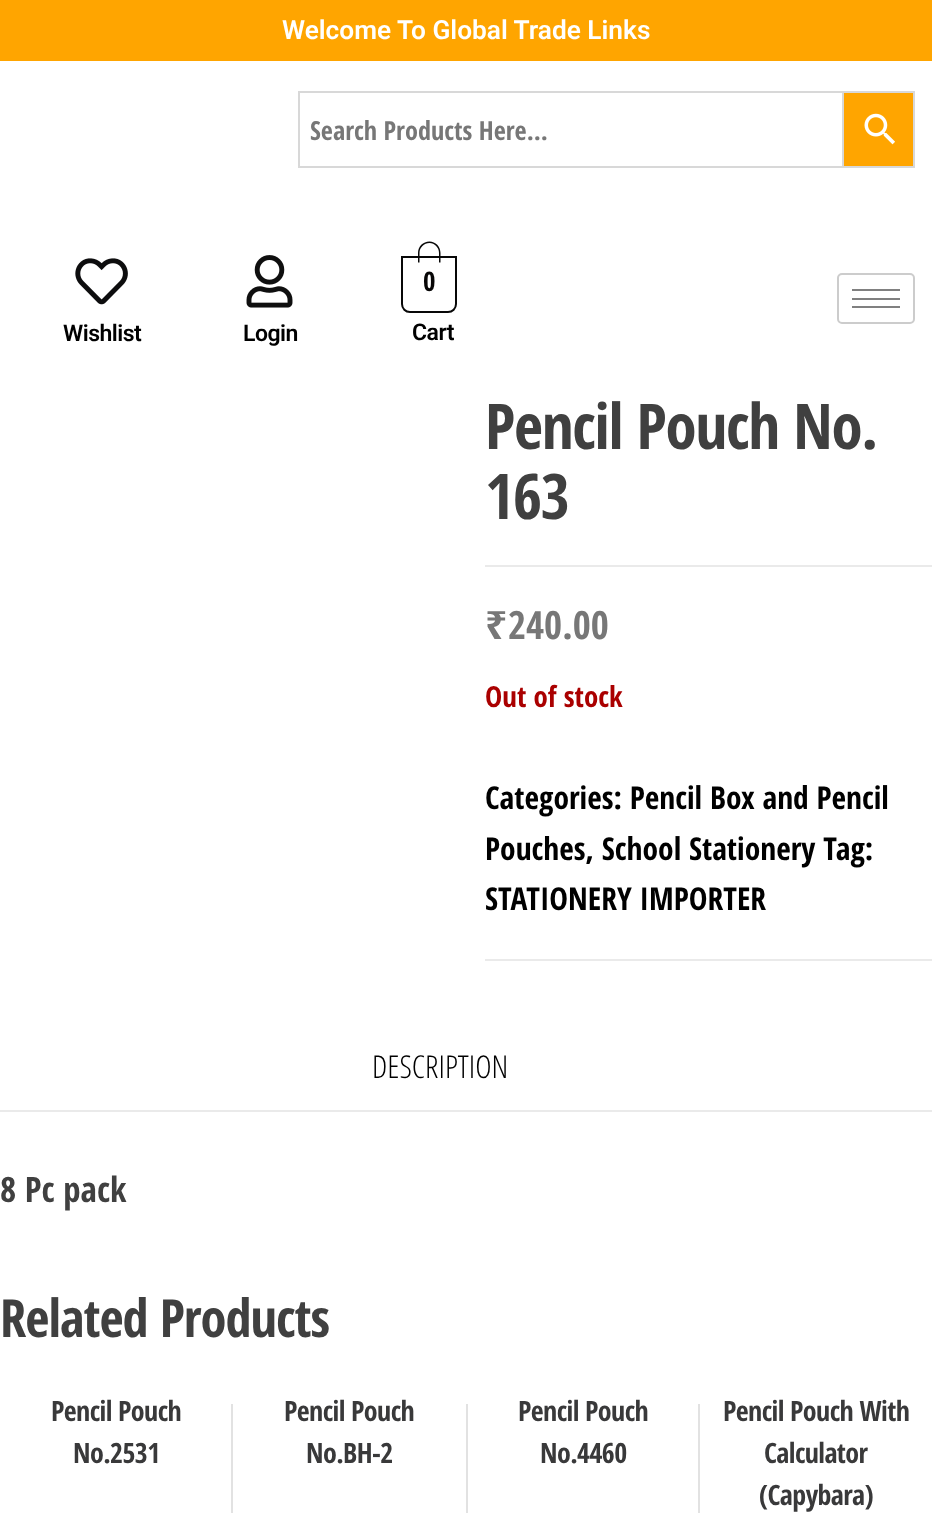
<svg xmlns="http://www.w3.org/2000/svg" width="932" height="1513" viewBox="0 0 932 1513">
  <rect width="100%" height="100%" fill="#fff"/>
  <path d="M0 0h932v61H0z" fill="#ffa500"/>
  <path d="M843 92h71v75H843z" fill="#ffa500" stroke="#d8d8d8" stroke-width="2"/>
  <path d="M299 92h544v75H299z" fill="none" stroke="#d8d8d8" stroke-width="2"/>
  <image x="864" y="113" width="31" height="32" href="img/1.png"/>
  <image x="75" y="258" width="53" height="47" href="img/2.png"/>
  <image x="246" y="255" width="47" height="53" href="img/3.png"/>
  <path d="M402 257H456V304C456 308.5 452.5 312 448 312H410C405.5 312 402 308.5 402 304Z" fill="none" stroke="#080808" stroke-width="2"/>
  <path d="M429.5 241.5C435.5 241.5 440.5 246.5 440.5 253V262.5H418V253C418 246.5 423 241.5 429.5 241.5ZM429.5 243C434.5 243 439 247.5 439 253V262.5H419.5V253C419.5 247.5 424 243 429.5 243Z" fill="#080808" fill-rule="evenodd"/>
  <rect x="838" y="274" width="76" height="49" rx="4" fill="none" stroke="#ccc" stroke-width="2"/>
  <path d="M852 289h48v2H852z" fill="#808080"/>
  <path d="M852 298h48v2H852z" fill="#808080"/>
  <path d="M852 306h48v2H852z" fill="#808080"/>
  <path d="M485 565h447v2H485z" fill="#eaeaea"/>
  <path d="M485 959h447v2H485z" fill="#eaeaea"/>
  <path d="M0 1110h932v2H0z" fill="#eaeaea"/>
  <path d="M231 1404h2v109H231z" fill="#e2e2e2"/>
  <path d="M466 1404h2v109H466z" fill="#e2e2e2"/>
  <path d="M698 1404h2v109H698z" fill="#e2e2e2"/>
  <text x="282" y="39" font-family="Roboto" font-size="26.25" font-weight="600" fill="#fff">Welcome To Global Trade Links</text>
  <text x="310" y="140" font-family="Open Sans Condensed" font-size="26.25" font-weight="bold" fill="#777">Search Products Here...</text>
  <g font-family="Roboto" font-size="23" font-weight="600" letter-spacing="-0.5" fill="#000">
    <text x="63" y="341">Wishlist</text>
    <text x="243" y="341">Login</text>
  </g>
  <text x="423" y="291" font-family="Open Sans Condensed" font-size="27" font-weight="bold" fill="#070606">0</text>
  <text x="412" y="340" font-family="Roboto" font-size="23" font-weight="600" letter-spacing="-0.5" fill="#000">Cart</text>
  <g font-family="Open Sans Condensed" font-size="63" font-weight="bold" letter-spacing="-1.25" fill="#404040">
    <text x="485" y="449">Pencil Pouch No.</text>
    <text x="485" y="519">163</text>
  </g>
  <text x="485" y="639" font-family="Noto Sans" font-size="39" font-weight="bold" fill="#777">₹</text>
  <text x="508" y="639" font-family="Open Sans Condensed" font-size="39" font-weight="bold" fill="#777">240.00</text>
  <text x="485" y="707" font-family="Open Sans Condensed" font-size="29" font-weight="bold" fill="#a00">Out of stock</text>
  <g font-family="Open Sans Condensed" font-size="31.5" font-weight="bold" fill="#000">
    <text x="485" y="809">Categories: Pencil Box and Pencil</text>
    <text x="485" y="860">Pouches, School Stationery Tag:</text>
    <text x="485" y="910">STATIONERY IMPORTER</text>
  </g>
  <text x="372" y="1078" font-family="Open Sans Condensed" font-size="31.5" font-weight="300" fill="#000">DESCRIPTION</text>
  <text x="0" y="1202" font-family="Open Sans Condensed" font-size="35" font-weight="bold" fill="#404040">8 Pc pack</text>
  <text x="0" y="1337" font-family="Open Sans Condensed" font-size="52.5" font-weight="bold" letter-spacing="-1" fill="#404040">Related Products</text>
  <g font-family="Open Sans Condensed" font-size="28" font-weight="bold" letter-spacing="-0.6" fill="#39393a">
    <text x="51" y="1421">Pencil Pouch</text>
    <text x="73" y="1463">No.2531</text>
    <text x="284" y="1421">Pencil Pouch</text>
    <text x="306" y="1463">No.BH-2</text>
    <text x="518" y="1421">Pencil Pouch</text>
    <text x="540" y="1463">No.4460</text>
    <text x="723" y="1421">Pencil Pouch With</text>
    <text x="764" y="1463">Calculator</text>
    <text x="759" y="1505">(Capybara)</text>
  </g>
</svg>
